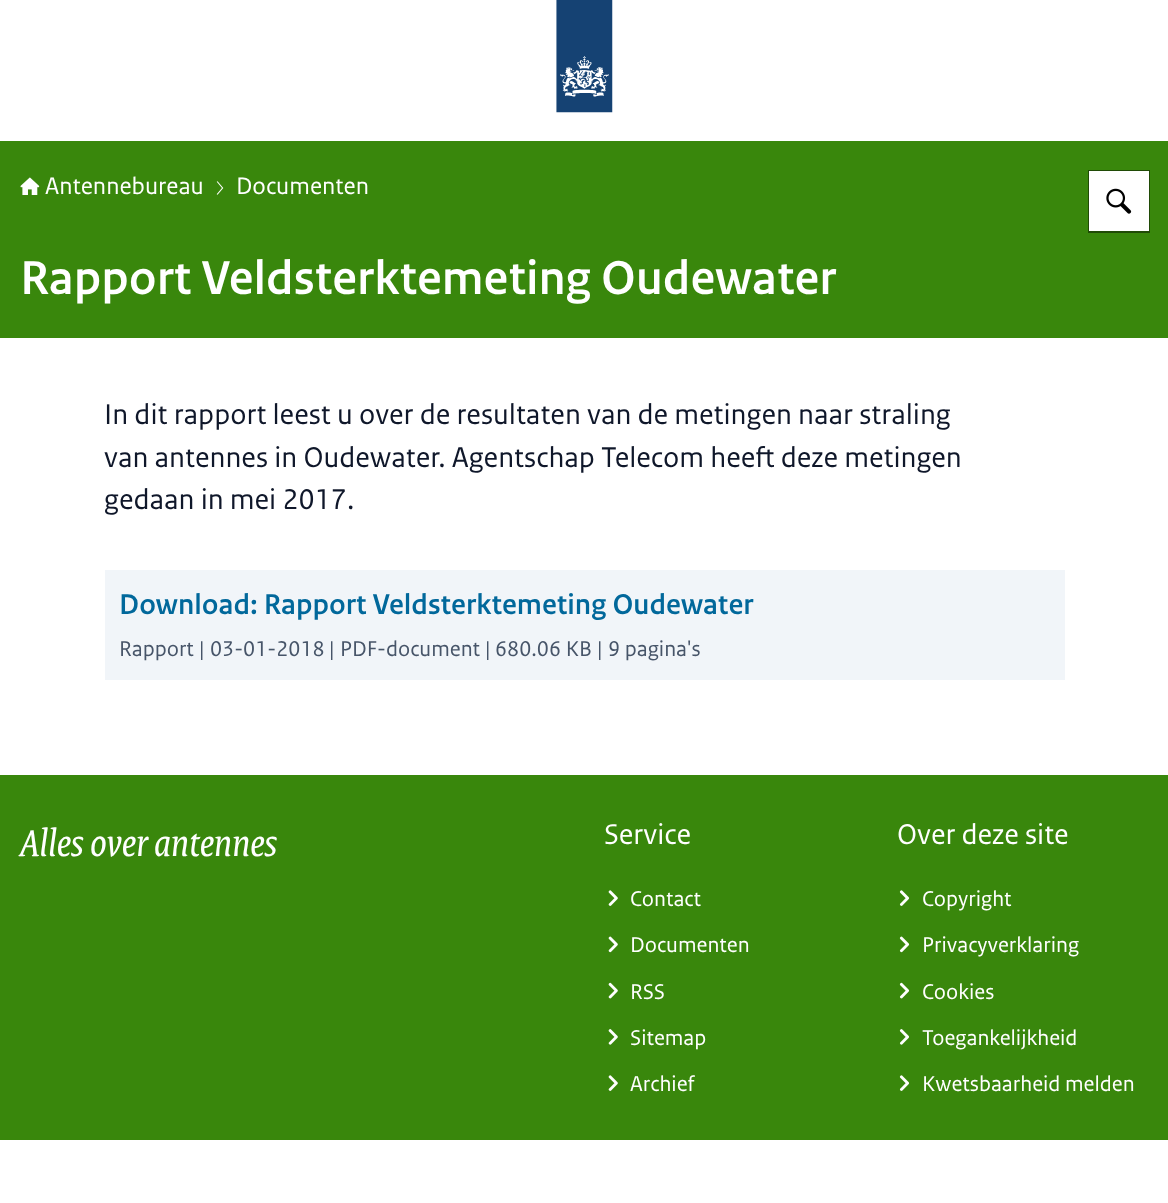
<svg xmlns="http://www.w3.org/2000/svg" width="1168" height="1203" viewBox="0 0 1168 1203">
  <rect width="100%" height="100%" fill="#fff"/>
  <image x="556" y="0" width="57" height="113" href="img/1.png"/>
  <path d="M0 141h1168v197H0z" fill="#39870c"/>
  <image x="20" y="177" width="20" height="18" href="img/2.png"/>
  <image x="216" y="181" width="8" height="14" href="img/3.png"/>
  <path d="M1088 170h62v63H1088z" fill="#00000070" filter="blur(0.5px)"/>
  <path d="M1089 171h60v60H1089z" fill="#fff"/>
  <image x="1106" y="188" width="26" height="26" href="img/4.png"/>
  <path d="M105 570h960v110H105z" fill="#f1f5f9"/>
  <path d="M0 775h1168v365H0z" fill="#39870c"/>
  <image x="608" y="890" width="10" height="16" href="img/5.png"/>
  <image x="608" y="936" width="10" height="17" href="img/6.png"/>
  <image x="608" y="982" width="10" height="17" href="img/7.png"/>
  <image x="608" y="1029" width="10" height="16" href="img/8.png"/>
  <image x="608" y="1075" width="10" height="16" href="img/5.png"/>
  <image x="899" y="890" width="11" height="16" href="img/9.png"/>
  <image x="899" y="936" width="11" height="17" href="img/10.png"/>
  <image x="899" y="982" width="11" height="17" href="img/11.png"/>
  <image x="899" y="1029" width="10" height="16" href="img/12.png"/>
  <image x="899" y="1075" width="11" height="16" href="img/9.png"/>
  <g font-family="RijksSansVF" font-size="25" fill="#fff">
    <text x="45" y="194">Antennebureau</text>
    <text x="236" y="194">Documenten</text>
  </g>
  <text x="20" y="294" font-family="RijksSansVF" font-size="50" font-weight="600" fill="#fff">Rapport Veldsterktemeting Oudewater</text>
  <g font-family="RijksSansVF" font-size="30" fill="#0f172a">
    <text x="104" y="424">In dit rapport leest u over de resultaten van de metingen naar straling</text>
    <text x="104" y="467">van antennes in Oudewater. Agentschap Telecom heeft deze metingen</text>
    <text x="104" y="509">gedaan in mei 2017.</text>
  </g>
  <text x="119" y="614" font-family="RijksSansVF" font-size="30" font-weight="600" fill="#01689b">Download: Rapport Veldsterktemeting Oudewater</text>
  <g font-family="RijksSansVF" font-size="22.5" fill="#475569">
    <text x="119" y="656">Rapport</text>
    <text x="199" y="656">|</text>
    <text x="210" y="656">03-01-2018</text>
    <text x="329" y="656">|</text>
    <text x="340" y="656">PDF-document</text>
    <text x="485" y="656">|</text>
    <text x="495" y="656">680.06 KB</text>
    <text x="597" y="656">|</text>
    <text x="608" y="656">9 pagina's</text>
  </g>
  <text x="20" y="856" font-family="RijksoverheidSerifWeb" font-size="40" font-style="italic" fill="#fff">Alles over antennes</text>
  <text x="604" y="844" font-family="RijksSansVF" font-size="30" fill="#fff">Service</text>
  <g font-family="RijksSansVF" font-size="22.5" fill="#fff">
    <text x="630" y="906">Contact</text>
    <text x="630" y="952">Documenten</text>
    <text x="630" y="999">RSS</text>
    <text x="630" y="1045">Sitemap</text>
    <text x="630" y="1091">Archief</text>
  </g>
  <text x="897" y="844" font-family="RijksSansVF" font-size="30" fill="#fff">Over deze site</text>
  <g font-family="RijksSansVF" font-size="22.5" fill="#fff">
    <text x="922" y="906">Copyright</text>
    <text x="922" y="952">Privacyverklaring</text>
    <text x="922" y="999">Cookies</text>
    <text x="922" y="1045">Toegankelijkheid</text>
    <text x="922" y="1091">Kwetsbaarheid melden</text>
  </g>
</svg>
